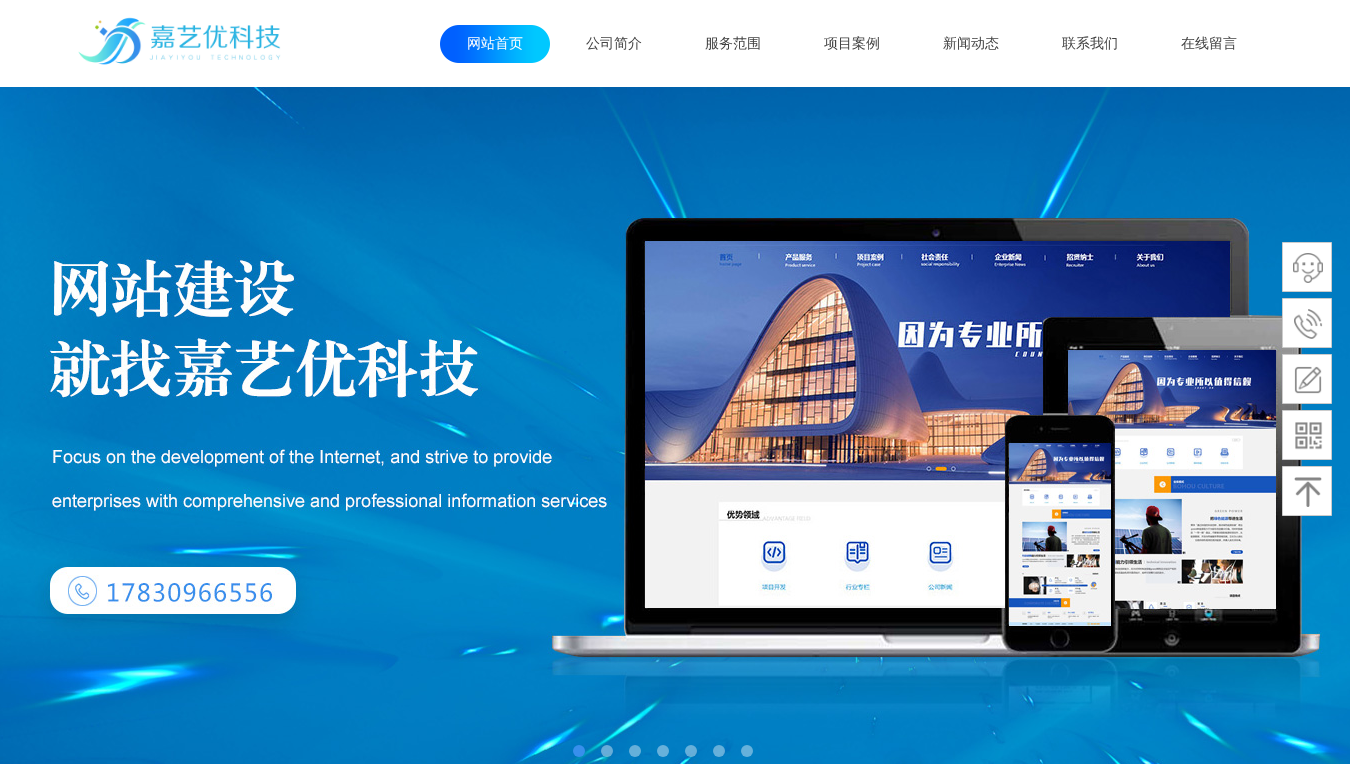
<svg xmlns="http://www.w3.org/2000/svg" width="1350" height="764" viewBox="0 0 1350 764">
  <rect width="100%" height="100%" fill="#fff"/>
  <image x="78" y="17" width="203" height="48" href="img/1.png"/>
  <image x="440" y="25" width="110" height="38" href="img/2.png"/>
  <image x="0" y="87" width="1350" height="677" href="img/3.png"/>
  <circle cx="579" cy="751" r="6" fill="#388fec"/>
  <circle cx="607" cy="751" r="6" fill="#ffffff66"/>
  <circle cx="635" cy="751" r="6" fill="#ffffff66"/>
  <circle cx="663" cy="751" r="6" fill="#67b1db"/>
  <circle cx="691" cy="751" r="6" fill="#ffffff66"/>
  <circle cx="719" cy="751" r="6" fill="#ffffff66"/>
  <circle cx="747" cy="751" r="6" fill="#ffffff66"/>
  <path d="M1282.5 242.5h49v49H1282.5z" fill="#fff" stroke="#ccc"/>
  <image x="1293" y="253" width="30" height="30" href="img/4.png"/>
  <path d="M1282.5 298.5h49v49H1282.5z" fill="#fff" stroke="#ccc"/>
  <image x="1294" y="309" width="29" height="30" href="img/5.png"/>
  <path d="M1282.5 354.5h49v49H1282.5z" fill="#fff" stroke="#ccc"/>
  <image x="1294" y="366" width="28" height="28" href="img/6.png"/>
  <path d="M1282.5 410.5h49v49H1282.5z" fill="#fff" stroke="#ccc"/>
  <image x="1295" y="422" width="28" height="28" href="img/7.png"/>
  <path d="M1282.5 466.5h49v49H1282.5z" fill="#fff" stroke="#ccc"/>
  <image x="1294" y="477" width="28" height="30" href="img/8.png"/>
  <text x="467" y="48" font-family="WenQuanYi Zen Hei" font-size="14" font-weight="500" fill="#fff">网站首页</text>
  <g font-family="WenQuanYi Zen Hei" font-size="14" font-weight="500" fill="#434343">
    <text x="586" y="48">公司简介</text>
    <text x="705" y="48">服务范围</text>
    <text x="824" y="48">项目案例</text>
    <text x="943" y="48">新闻动态</text>
    <text x="1062" y="48">联系我们</text>
    <text x="1181" y="48">在线留言</text>
  </g>
</svg>
